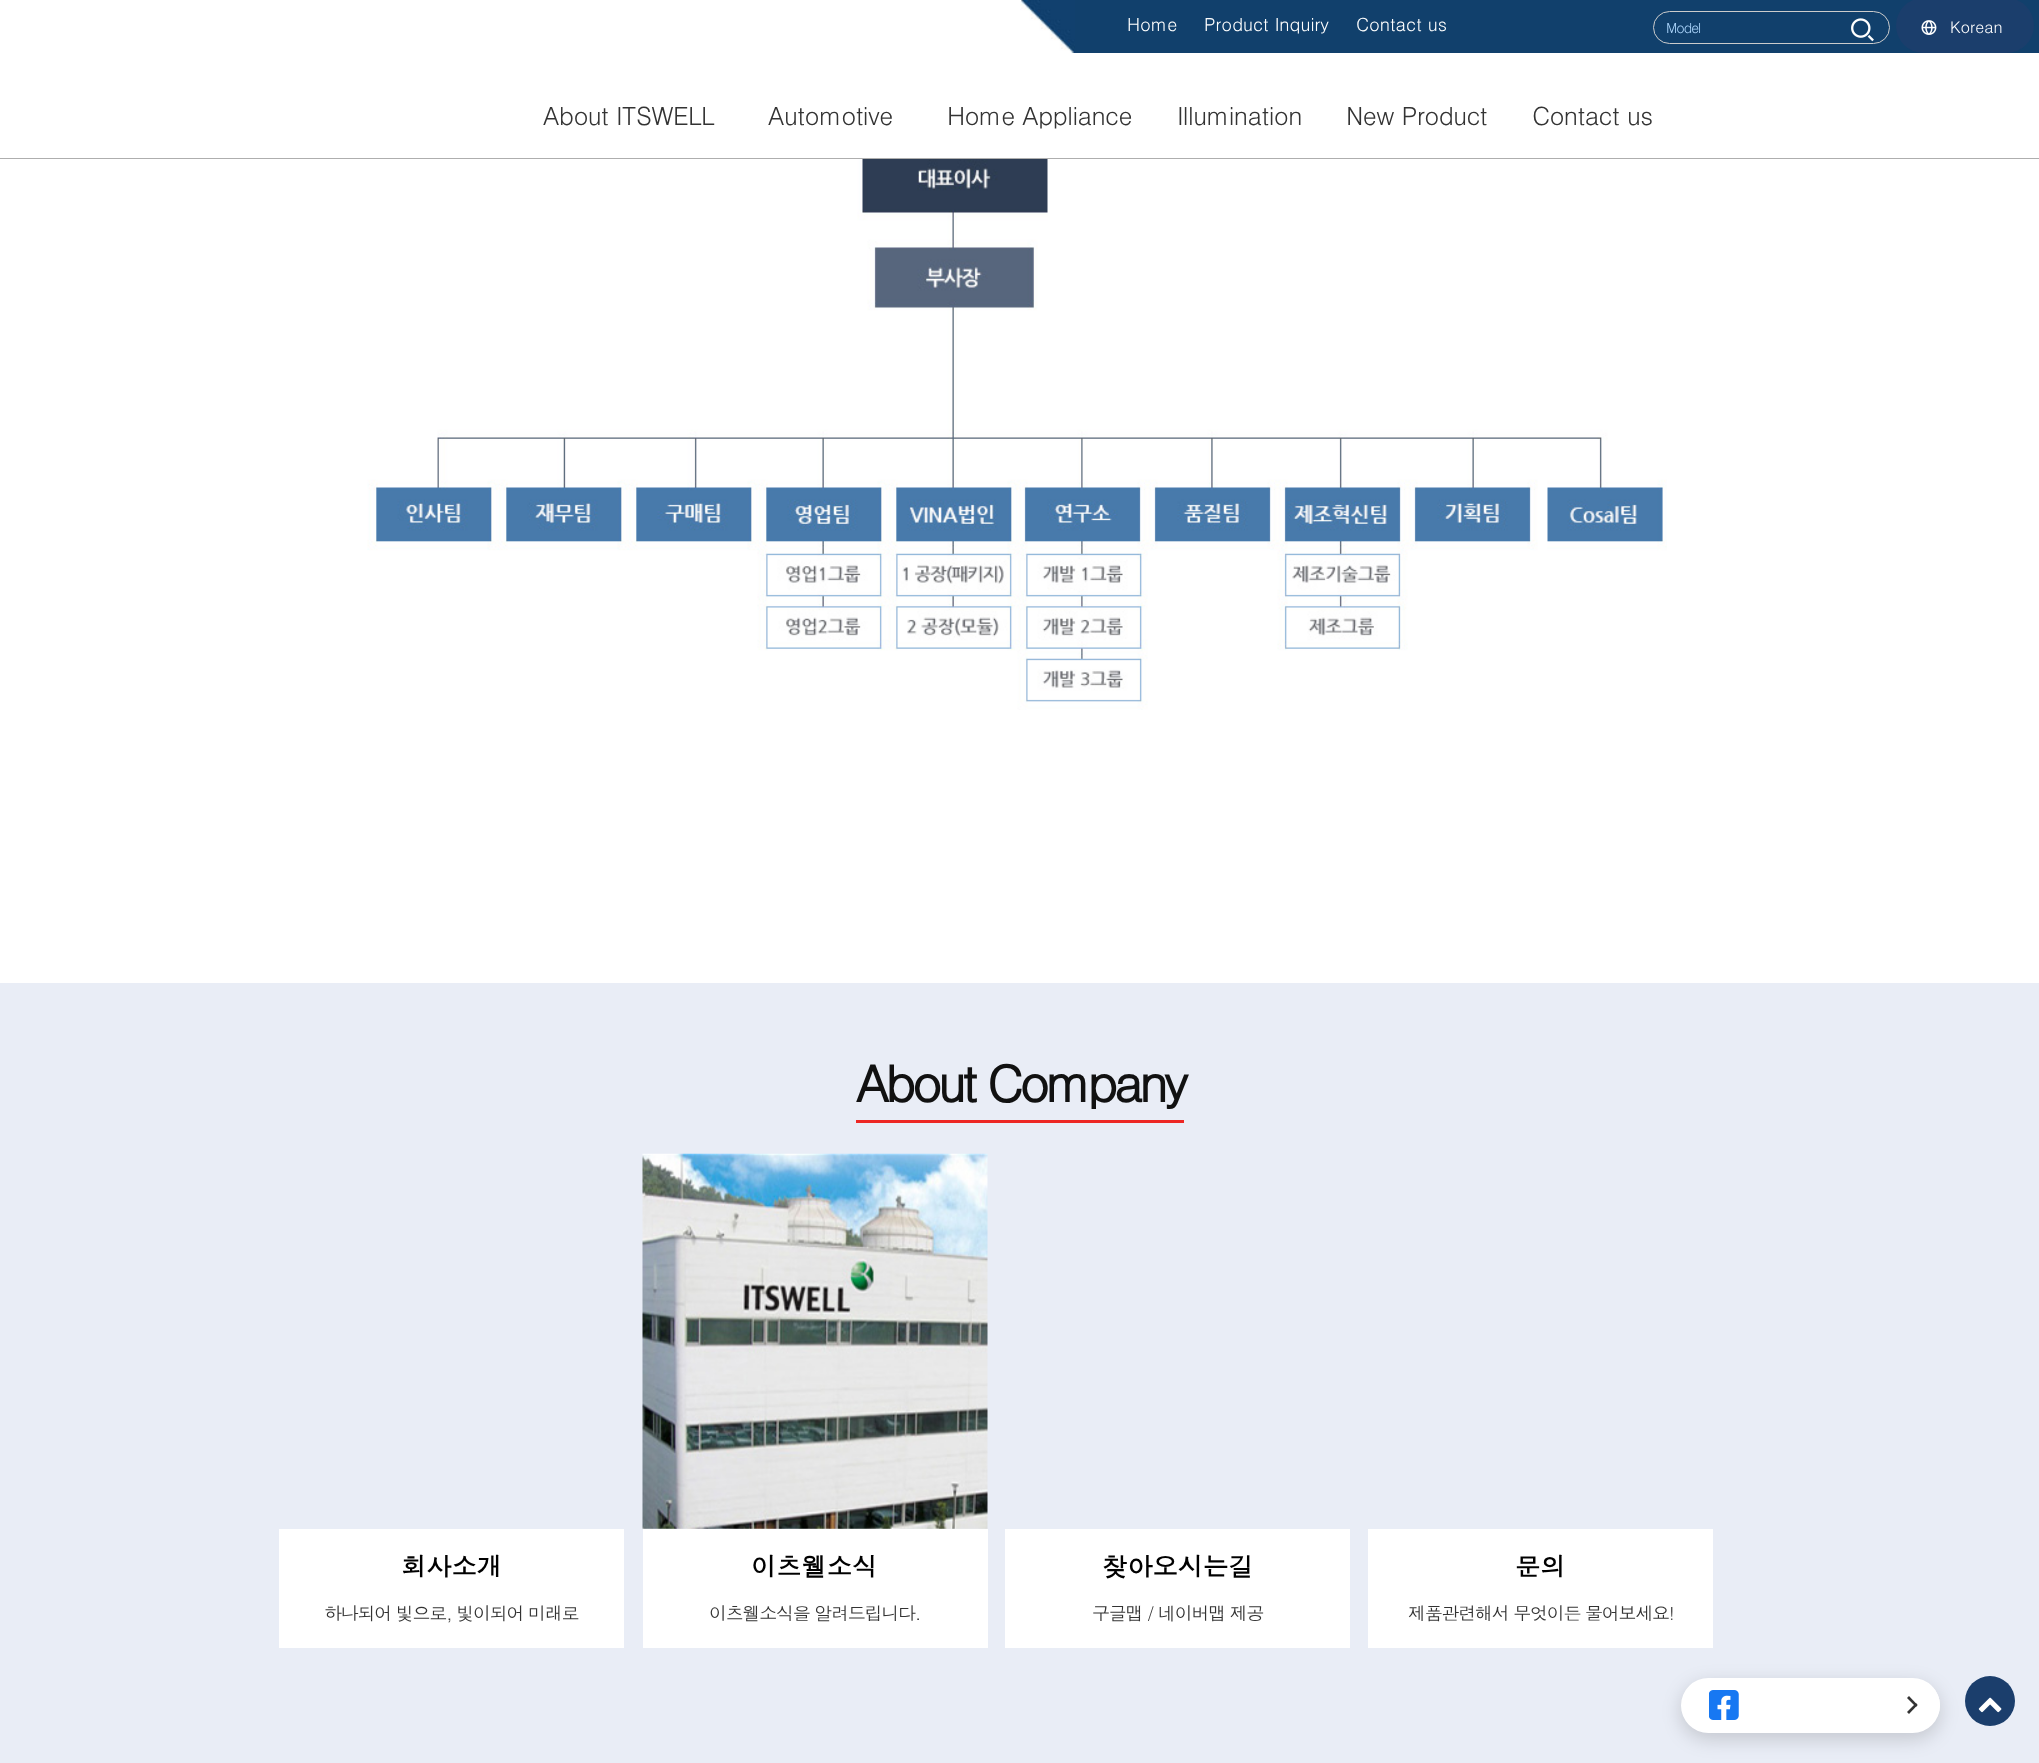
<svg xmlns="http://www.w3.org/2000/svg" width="2039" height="1763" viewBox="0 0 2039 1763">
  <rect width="100%" height="100%" fill="#fff"/>
  <path d="M1075 0h964v53H1075z" fill="#11406c"/>
  <image x="1020" y="0" width="55" height="53" href="img/1.png"/>
  <rect x="1653.5" y="11.5" width="236" height="32" rx="16" fill="none" stroke="#ccc"/>
  <image x="1851" y="18" width="23" height="24" href="img/2.png"/>
  <rect x="1896" y="-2" width="138" height="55" rx="27.5" fill="#1b3e6c"/>
  <image x="1921" y="20" width="16" height="15" href="img/3.png"/>
  <path d="M0 158h2039v1H0z" fill="#aeaeae"/>
  <image x="367" y="159" width="1300" height="551" href="img/4.png"/>
  <path d="M0 983h2039v780H0z" fill="#e9edf6"/>
  <path d="M856 1120h328v3H856z" fill="#ed2724"/>
  <path d="M279 1529h345v119H279z" fill="#fff"/>
  <image x="642" y="1153" width="346" height="376" href="img/5.png"/>
  <path d="M643 1529h345v119H643z" fill="#fff"/>
  <path d="M1005 1529h345v119H1005z" fill="#fff"/>
  <path d="M1368 1529h345v119H1368z" fill="#fff"/>
  <rect x="1681" y="1684" width="259" height="55" rx="27.5" fill="#00000029" filter="blur(9.5px)"/>
  <rect x="1681" y="1678" width="259" height="55" rx="27.5" fill="#fff"/>
  <image x="1709" y="1690" width="30" height="30" href="img/6.png"/>
  <circle cx="1915" cy="1705" r="25" fill="#fff"/>
  <path d="M1909 1696L1917.5 1705L1916 1707L1907 1698Z" fill="#333"/>
  <path d="M1916 1703L1917.5 1705L1909 1714L1907 1712Z" fill="#333"/>
  <circle cx="1990" cy="1701" r="25" fill="#1b3e6c"/>
  <image x="1978" y="1697" width="24" height="16" href="img/7.png"/>
  <g font-family="Dotum" font-size="18" fill="#fff">
    <text x="1127" y="31">Home</text>
    <text x="1204" y="31">Product Inquiry</text>
    <text x="1356" y="31">Contact us</text>
  </g>
  <text x="1666" y="33" font-family="Dotum" font-size="14" letter-spacing="-1" fill="#acd5fc">Model</text>
  <text x="1950" y="33" font-family="Dotum" font-size="16" fill="#fff">Korean</text>
  <g font-family="Dotum" font-size="25" letter-spacing="-0.6" fill="#333">
    <text x="543" y="125">About ITSWELL</text>
    <text x="768" y="125">Automotive</text>
    <text x="947" y="125">Home Appliance</text>
    <text x="1177" y="125">Illumination</text>
    <text x="1346" y="125">New Product</text>
    <text x="1532" y="125">Contact us</text>
  </g>
  <text x="856" y="1102" font-family="Dotum" font-size="50" font-weight="bold" letter-spacing="-3.75" fill="#111">About Company</text>
  <text x="401" y="1576" font-family="Dotum" font-size="25.25" font-weight="bold" fill="#000">회사소개</text>
  <text x="324" y="1620" font-family="Dotum" font-size="18" letter-spacing="-1.25" fill="#333">하나되어 빛으로, 빛이되어 미래로</text>
  <text x="751" y="1576" font-family="Dotum" font-size="25.25" font-weight="bold" fill="#000">이츠웰소식</text>
  <text x="709" y="1620" font-family="Dotum" font-size="18" letter-spacing="-1.25" fill="#333">이츠웰소식을 알려드립니다.</text>
  <text x="1102" y="1576" font-family="Dotum" font-size="25.25" font-weight="bold" fill="#000">찾아오시는길</text>
  <text x="1092" y="1620" font-family="Dotum" font-size="18" letter-spacing="-1.25" fill="#333">구글맵 / 네이버맵 제공</text>
  <text x="1515" y="1576" font-family="Dotum" font-size="25.25" font-weight="bold" fill="#000">문의</text>
  <text x="1408" y="1620" font-family="Dotum" font-size="18" letter-spacing="-1.25" fill="#333">제품관련해서 무엇이든 물어보세요!</text>
</svg>
